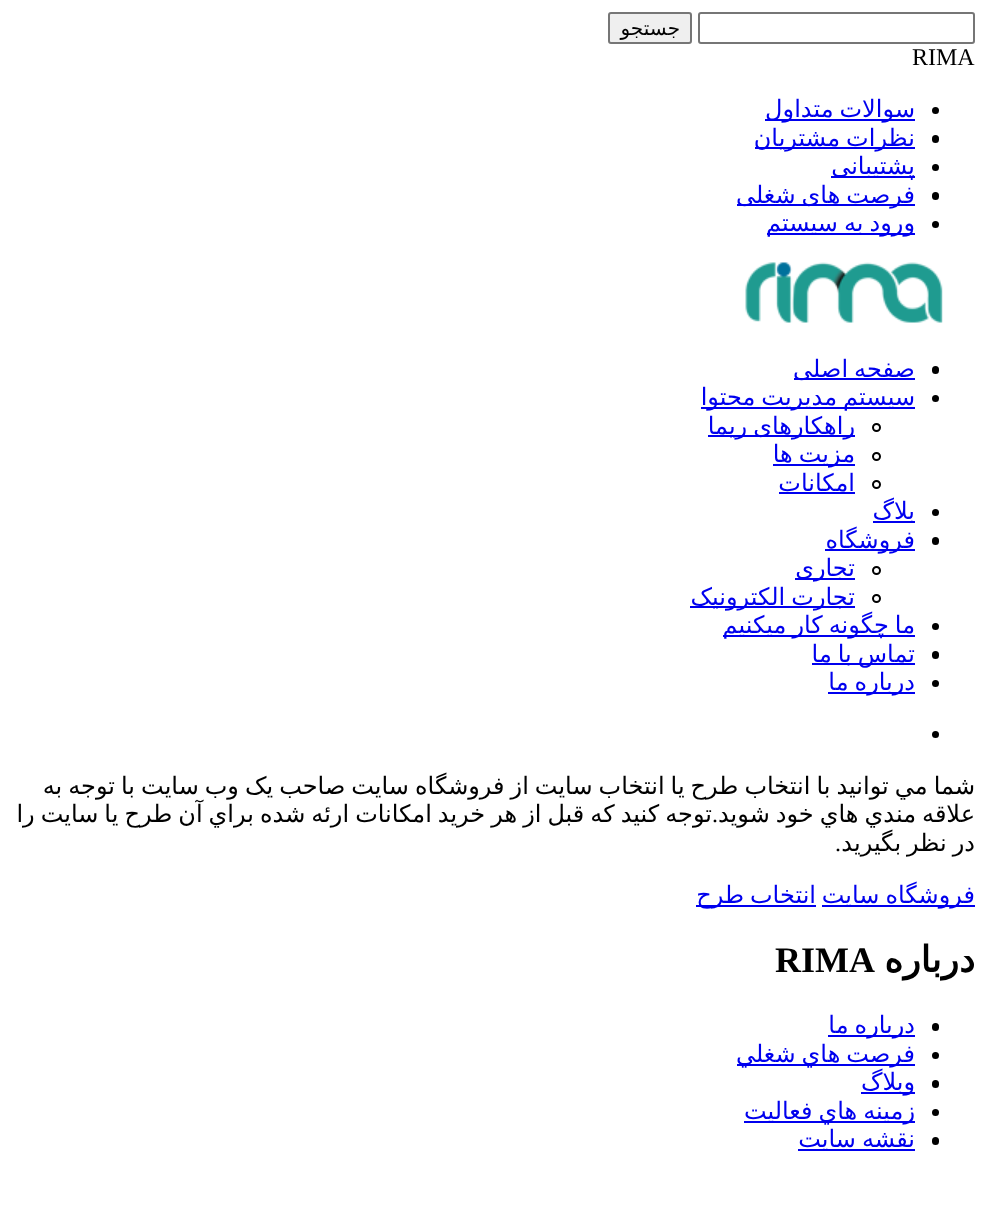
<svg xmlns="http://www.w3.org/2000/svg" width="986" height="1231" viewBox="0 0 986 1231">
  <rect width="100%" height="100%" fill="#fff"/>
  <rect x="699" y="13" width="275" height="30" rx="2" fill="none" stroke="#767676" stroke-width="2"/>
  <rect x="609" y="13" width="82" height="30" rx="2" fill="#efefef" stroke="#767676" stroke-width="2"/>
  <circle cx="935.5" cy="110.5" r="3.5" fill="#000"/>
  <path d="M765 119h150v2H765z" fill="#00e"/>
  <rect x="932" y="135" width="7" height="8" rx="3.5" fill="#000"/>
  <path d="M755 147h160v2H755z" fill="#00e"/>
  <circle cx="935.5" cy="167.5" r="3.5" fill="#000"/>
  <path d="M831 176h84v2H831z" fill="#00e"/>
  <rect x="932" y="192" width="7" height="8" rx="3.5" fill="#000"/>
  <path d="M737 204h178v2H737z" fill="#00e"/>
  <circle cx="935.5" cy="224.5" r="3.5" fill="#000"/>
  <path d="M767 233h148v2H767z" fill="#00e"/>
  <image x="745" y="262" width="198" height="61" href="img/1.png"/>
  <rect x="932" y="366" width="7" height="8" rx="3.5" fill="#000"/>
  <path d="M794 378h121v2H794z" fill="#00e"/>
  <circle cx="935.5" cy="398.5" r="3.5" fill="#000"/>
  <path d="M701 407h214v2H701z" fill="#00e"/>
  <circle cx="876.5" cy="427.5" r="3.5" fill="none" stroke="#000" stroke-width="2"/>
  <path d="M708 435h147v2H708z" fill="#00e"/>
  <circle cx="876.5" cy="456.5" r="3.5" fill="none" stroke="#000" stroke-width="2"/>
  <path d="M773 464h82v2H773z" fill="#00e"/>
  <circle cx="876.5" cy="484.5" r="3.5" fill="none" stroke="#000" stroke-width="2"/>
  <path d="M779 492h76v2H779z" fill="#00e"/>
  <circle cx="935.5" cy="512.5" r="3.5" fill="#000"/>
  <path d="M873 521h42v2H873z" fill="#00e"/>
  <rect x="932" y="537" width="7" height="8" rx="3.5" fill="#000"/>
  <path d="M825 549h90v2H825z" fill="#00e"/>
  <circle cx="876.5" cy="570.5" r="3.5" fill="none" stroke="#000" stroke-width="2"/>
  <path d="M795 578h60v2H795z" fill="#00e"/>
  <circle cx="876.5" cy="598.5" r="3.5" fill="none" stroke="#000" stroke-width="2"/>
  <path d="M690 606h165v2H690z" fill="#00e"/>
  <circle cx="935.5" cy="626.5" r="3.5" fill="#000"/>
  <path d="M723 635h192v2H723z" fill="#00e"/>
  <rect x="932" y="651" width="7" height="8" rx="3.5" fill="#000"/>
  <path d="M812 663h103v2H812z" fill="#00e"/>
  <circle cx="935.5" cy="683.5" r="3.5" fill="#000"/>
  <path d="M828 692h87v2H828z" fill="#00e"/>
  <circle cx="935.5" cy="734.5" r="3.5" fill="#000"/>
  <path d="M822 905h153v2H822z" fill="#00e"/>
  <path d="M696 905h120v2H696z" fill="#00e"/>
  <rect x="932" y="1023" width="7" height="8" rx="3.5" fill="#000"/>
  <path d="M828 1035h87v2H828z" fill="#00e"/>
  <circle cx="935.5" cy="1055.5" r="3.5" fill="#000"/>
  <path d="M737 1064h178v2H737z" fill="#00e"/>
  <rect x="932" y="1080" width="7" height="8" rx="3.5" fill="#000"/>
  <path d="M861 1092h54v2H861z" fill="#00e"/>
  <circle cx="935.5" cy="1112.5" r="3.5" fill="#000"/>
  <path d="M744 1121h171v2H744z" fill="#00e"/>
  <rect x="932" y="1137" width="7" height="8" rx="3.5" fill="#000"/>
  <path d="M798 1149h117v2H798z" fill="#00e"/>
  <text x="680" y="35" font-family="DejaVu Sans" font-size="20" direction="rtl" fill="#000">جستجو</text>
  <text x="912" y="65" font-family="Liberation Serif" font-size="24" fill="#000">RIMA</text>
  <g font-family="DejaVu Sans" font-size="24" direction="rtl" fill="#00e">
    <text x="915" y="117" word-spacing="-1.6">سوالات متداول</text>
    <text x="915" y="146" word-spacing="-1.6">نظرات مشتریان</text>
    <text x="915" y="174">پشتیبانی</text>
    <text x="915" y="203" word-spacing="-1.6">فرصت های شغلی</text>
    <text x="915" y="231" word-spacing="-1.6">ورود به سیستم</text>
    <text x="915" y="377" word-spacing="-1.6">صفحه اصلی</text>
    <text x="915" y="405" word-spacing="-1.6">سیستم مدیریت محتوا</text>
    <text x="855" y="434" word-spacing="-1.6">راهکارهای ریما</text>
    <text x="855" y="462" word-spacing="-1.6">مزیت ها</text>
    <text x="855" y="491">امکانات</text>
    <text x="915" y="519">بلاگ</text>
    <text x="915" y="548">فروشگاه</text>
    <text x="855" y="576">تجاری</text>
    <text x="855" y="605" word-spacing="-1.6">تجارت الکترونیک</text>
    <text x="915" y="633" word-spacing="-1.6">ما چگونه کار میکنیم</text>
    <text x="915" y="662" word-spacing="-1.6">تماس با ما</text>
    <text x="915" y="690" word-spacing="-1.6">درباره ما</text>
  </g>
  <g font-family="DejaVu Sans" font-size="24" direction="rtl" fill="#000">
    <text x="975" y="794" word-spacing="-1.6">شما مي توانيد با انتخاب طرح يا انتخاب سايت از فروشگاه سايت صاحب يک وب سايت با توجه به</text>
    <text x="712" y="822" word-spacing="-1.6">توجه کنيد که قبل از هر خريد امکانات ارئه شده براي آن طرح يا سايت را</text>
    <text x="975" y="822" word-spacing="-1.6">علاقه مندي هاي خود شويد</text>
  </g>
  <text x="718" y="822" font-family="Liberation Serif" font-size="24" direction="rtl" fill="#000">.</text>
  <text x="975" y="851" word-spacing="-1.6" font-family="DejaVu Sans" font-size="24" direction="rtl" fill="#000">در نظر بگيريد</text>
  <text x="841" y="851" font-family="Liberation Serif" font-size="24" direction="rtl" fill="#000">.</text>
  <g font-family="DejaVu Sans" font-size="24" direction="rtl" fill="#00e">
    <text x="975" y="903" word-spacing="-1.6">فروشگاه سايت</text>
    <text x="816" y="903" word-spacing="-1.6">انتخاب طرح</text>
  </g>
  <text x="975" y="972" font-family="DejaVu Sans" font-size="36" font-weight="bold" direction="rtl" fill="#000">درباره</text>
  <text x="775" y="972" font-family="Liberation Serif" font-size="36" font-weight="bold" fill="#000">RIMA</text>
  <g font-family="DejaVu Sans" font-size="24" direction="rtl" fill="#00e">
    <text x="915" y="1033" word-spacing="-1.6">درباره ما</text>
    <text x="915" y="1062" word-spacing="-1.6">فرصت هاي شغلي</text>
    <text x="915" y="1090">وبلاگ</text>
    <text x="915" y="1119" word-spacing="-1.6">زمينه هاي فعاليت</text>
    <text x="915" y="1147" word-spacing="-1.6">نقشه سایت</text>
  </g>
</svg>
